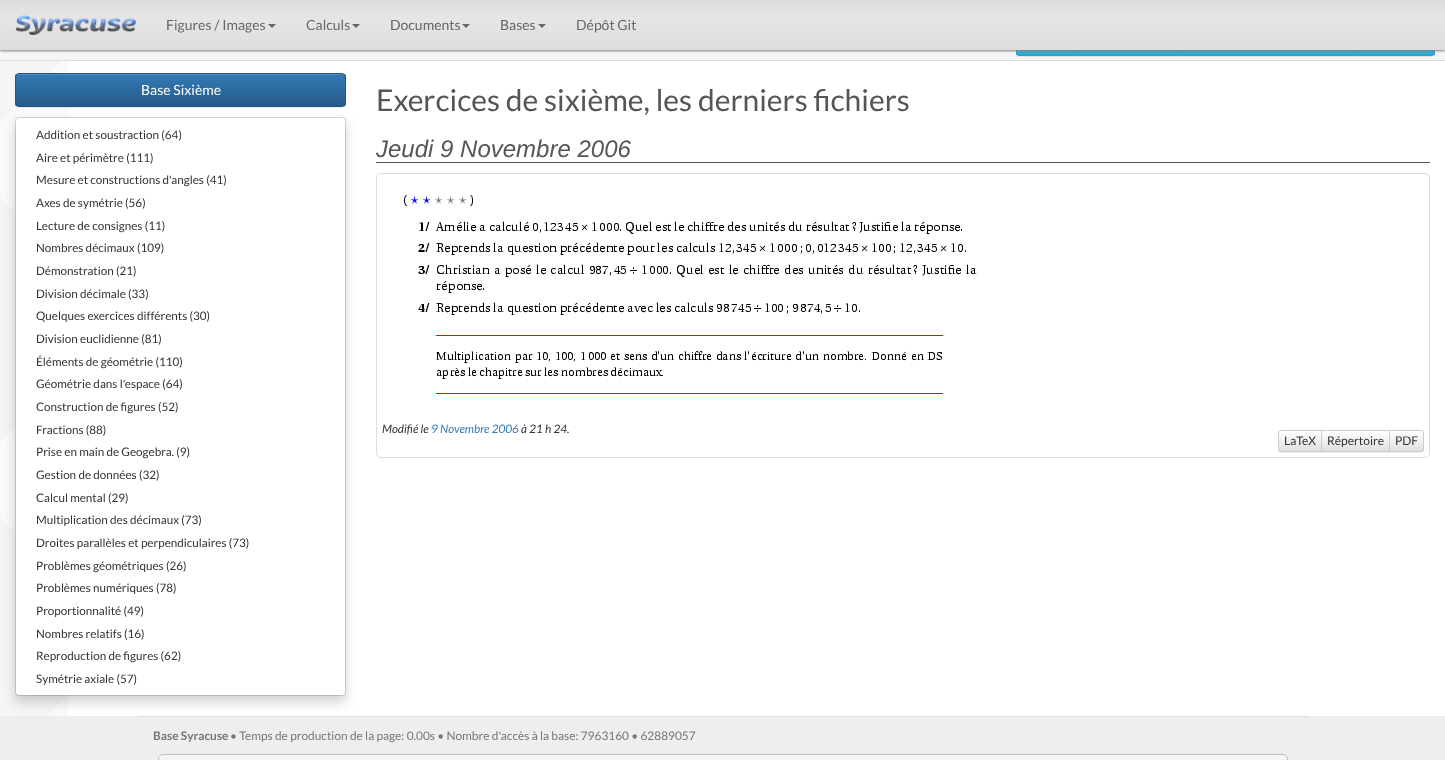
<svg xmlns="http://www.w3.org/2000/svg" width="1445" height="760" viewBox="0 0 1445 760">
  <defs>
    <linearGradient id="g1" gradientUnits="userSpaceOnUse" x1="1047" y1="27" x2="1047" y2="55"><stop offset="0" stop-color="#5bc0de"/><stop offset="1" stop-color="#2aabd2"/></linearGradient>
    <linearGradient id="g2" gradientUnits="userSpaceOnUse" x1="1102" y1="27" x2="1102" y2="55"><stop offset="0" stop-color="#5bc0de"/><stop offset="1" stop-color="#2aabd2"/></linearGradient>
    <linearGradient id="g3" gradientUnits="userSpaceOnUse" x1="1152" y1="27" x2="1152" y2="55"><stop offset="0" stop-color="#5bc0de"/><stop offset="1" stop-color="#2aabd2"/></linearGradient>
    <linearGradient id="g4" gradientUnits="userSpaceOnUse" x1="1203" y1="27" x2="1203" y2="55"><stop offset="0" stop-color="#5bc0de"/><stop offset="1" stop-color="#2aabd2"/></linearGradient>
    <linearGradient id="g5" gradientUnits="userSpaceOnUse" x1="1253" y1="27" x2="1253" y2="55"><stop offset="0" stop-color="#5bc0de"/><stop offset="1" stop-color="#2aabd2"/></linearGradient>
    <linearGradient id="g6" gradientUnits="userSpaceOnUse" x1="1316" y1="27" x2="1316" y2="55"><stop offset="0" stop-color="#5bc0de"/><stop offset="1" stop-color="#2aabd2"/></linearGradient>
    <linearGradient id="g7" gradientUnits="userSpaceOnUse" x1="1395" y1="27" x2="1395" y2="55"><stop offset="0" stop-color="#5bc0de"/><stop offset="1" stop-color="#2aabd2"/></linearGradient>
    <linearGradient id="g8" gradientUnits="userSpaceOnUse" x1="723" y1="0" x2="723" y2="50"><stop offset="0" stop-color="#ddd"/><stop offset="0.4" stop-color="#e6e6e6"/><stop offset="1" stop-color="#ddd"/></linearGradient>
    <clipPath id="clip1"><rect x="15" y="73" width="331" height="34" rx="4"/></clipPath>
    <linearGradient id="g9" gradientUnits="userSpaceOnUse" x1="181" y1="74" x2="181" y2="106"><stop offset="0" stop-color="#337ab7"/><stop offset="1" stop-color="#265a88"/></linearGradient>
    <clipPath id="clip2"><path d="M1281 430H1322V452H1281C1279.5 452 1278 450.5 1278 449V433C1278 431.5 1279.5 430 1281 430Z"/></clipPath>
    <linearGradient id="g10" gradientUnits="userSpaceOnUse" x1="1300" y1="431" x2="1300" y2="451"><stop offset="0" stop-color="#fff"/><stop offset="1" stop-color="#e0e0e0"/></linearGradient>
    <linearGradient id="g11" gradientUnits="userSpaceOnUse" x1="1356" y1="431" x2="1356" y2="451"><stop offset="0" stop-color="#fff"/><stop offset="1" stop-color="#e0e0e0"/></linearGradient>
    <clipPath id="clip3"><path d="M1389 430H1421C1422.5 430 1424 431.5 1424 433V449C1424 450.5 1422.5 452 1421 452H1389Z"/></clipPath>
    <linearGradient id="g12" gradientUnits="userSpaceOnUse" x1="1407" y1="431" x2="1407" y2="451"><stop offset="0" stop-color="#fff"/><stop offset="1" stop-color="#e0e0e0"/></linearGradient>
  </defs>
  <rect width="100%" height="100%" fill="#fff"/>
  <image x="0" y="61" width="68" height="655" href="img/1.png"/>
  <path d="M0 50h1445v10H0z" fill="#f5f5f5"/>
  <rect x="1016" y="27" width="61" height="30" rx="3" fill="#00000012" filter="blur(0.5px)"/>
  <path d="M1016 50h60v5H1016z" fill="url(#g1)"/>
  <path d="M1019 26.5H1076.5V55.5H1019C1017.5 55.5 1016.5 54.5 1016.5 53V29C1016.5 27.5 1017.5 26.5 1019 26.5Z" fill="none" stroke="#28a4c9"/>
  <path d="M1076 27h51v30H1076z" fill="#00000012" filter="blur(0.5px)"/>
  <path d="M1077 50h49v5H1077z" fill="url(#g2)"/>
  <path d="M1076.5 26.5h50v29H1076.5z" fill="none" stroke="#28a4c9"/>
  <path d="M1126 27h52v30H1126z" fill="#00000012" filter="blur(0.5px)"/>
  <path d="M1127 50h50v5H1127z" fill="url(#g3)"/>
  <path d="M1126.5 26.5h51v29H1126.5z" fill="none" stroke="#28a4c9"/>
  <path d="M1177 27h51v30H1177z" fill="#00000012" filter="blur(0.5px)"/>
  <path d="M1178 50h49v5H1178z" fill="url(#g4)"/>
  <path d="M1177.5 26.5h50v29H1177.5z" fill="none" stroke="#28a4c9"/>
  <path d="M1227 27h51v30H1227z" fill="#00000012" filter="blur(0.5px)"/>
  <path d="M1228 50h49v5H1228z" fill="url(#g5)"/>
  <path d="M1227.5 26.5h50v29H1227.5z" fill="none" stroke="#28a4c9"/>
  <path d="M1277 27h78v30H1277z" fill="#00000012" filter="blur(0.5px)"/>
  <path d="M1278 50h76v5H1278z" fill="url(#g6)"/>
  <path d="M1277.5 26.5h77v29H1277.5z" fill="none" stroke="#28a4c9"/>
  <rect x="1354" y="27" width="81" height="30" rx="3" fill="#00000012" filter="blur(0.5px)"/>
  <path d="M1355 50h80v5H1355z" fill="url(#g7)"/>
  <path d="M1354.5 26.5H1432C1433.5 26.5 1434.5 27.5 1434.5 29V53C1434.5 54.5 1433.5 55.5 1432 55.5H1354.5Z" fill="none" stroke="#28a4c9"/>
  <path d="M0 1h1445v50H0z" fill="#808080" filter="blur(1px)"/>
  <path d="M0 0h1445v50H0z" fill="url(#g8)"/>
  <image x="15" y="15" width="121" height="20" href="img/2.png"/>
  <path d="M268 24H276L272 28Z" fill="#666"/>
  <path d="M352 24H360L356 28Z" fill="#666"/>
  <path d="M462 24H470L466 28Z" fill="#666"/>
  <path d="M538 24H546L542 28Z" fill="#666"/>
  <path d="M0 60h1445v1H0z" fill="#dcdcdc"/>
  <rect x="15" y="74" width="331" height="34" rx="4" fill="#00000012" filter="blur(0.5px)"/>
  <g clip-path="url(#clip1)">
    <path d="M15 74h331v32H15z" fill="url(#g9)"/>
  </g>
  <path d="M19 75H342C344 75 345 76 345 78C345 76 344 74 342 74H19C17 74 16 76 16 78C16 76 17 75 19 75Z" fill="#528ec1"/>
  <rect x="15.5" y="73.5" width="330" height="33" rx="3.5" fill="none" stroke="#245580"/>
  <path d="M0 716h1445v44H0z" fill="#eee"/>
  <path d="M138 716h1170v1H138z" fill="#ddd"/>
  <rect x="15" y="123" width="331" height="579" rx="4" fill="#0000002e" filter="blur(6px)"/>
  <rect x="16" y="118" width="329" height="577" rx="3" fill="#fff"/>
  <rect x="15.5" y="117.5" width="330" height="578" rx="3.5" fill="none" stroke="#00000026"/>
  <path d="M376 162h1054v1H376z" fill="#555"/>
  <rect x="376.5" y="173.5" width="1053" height="284" rx="4.5" fill="none" stroke="#dcdcdc"/>
  <image x="404" y="195" width="573" height="199" href="img/3.png"/>
  <rect x="1278" y="431" width="44" height="22" rx="3" fill="#00000012" filter="blur(0.5px)"/>
  <g clip-path="url(#clip2)">
    <path d="M1278 431h43v20H1278z" fill="url(#g10)"/>
  </g>
  <path d="M1281 430.5H1321.5V451.5H1281C1279.5 451.5 1278.5 450.5 1278.5 449V433C1278.5 431.5 1279.5 430.5 1281 430.5Z" fill="none" stroke="#ccc"/>
  <path d="M1321 431h69v22H1321z" fill="#00000012" filter="blur(0.5px)"/>
  <path d="M1322 431h67v20H1322z" fill="url(#g11)"/>
  <path d="M1321.5 430.5h68v21H1321.5z" fill="none" stroke="#ccc"/>
  <rect x="1389" y="431" width="35" height="22" rx="3" fill="#00000012" filter="blur(0.5px)"/>
  <g clip-path="url(#clip3)">
    <path d="M1390 431h34v20H1390z" fill="url(#g12)"/>
  </g>
  <path d="M1389.5 430.5H1421C1422.5 430.5 1423.5 431.5 1423.5 433V449C1423.5 450.5 1422.5 451.5 1421 451.5H1389.5Z" fill="none" stroke="#ccc"/>
  <rect x="158.5" y="754.5" width="1129" height="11" rx="4.5" fill="#f5f5f5" stroke="#c0c0c0"/>
  <g font-family="Lato" font-size="14" fill="#666">
    <text x="166" y="30">Figures / Images</text>
    <text x="306" y="30">Calculs</text>
    <text x="390" y="30">Documents</text>
    <text x="500" y="30">Bases</text>
    <text x="576" y="30">Dépôt Git</text>
  </g>
  <text x="141" y="95" font-family="Lato" font-size="14" fill="#fff">Base Sixième</text>
  <g font-family="Lato" font-size="11.7" fill="#333">
    <text x="36" y="139">Addition et soustraction (64)</text>
    <text x="36" y="162">Aire et périmètre (111)</text>
    <text x="36" y="184">Mesure et constructions d'angles (41)</text>
    <text x="36" y="207">Axes de symétrie (56)</text>
    <text x="36" y="230">Lecture de consignes (11)</text>
    <text x="36" y="252">Nombres décimaux (109)</text>
    <text x="36" y="275">Démonstration (21)</text>
    <text x="36" y="298">Division décimale (33)</text>
    <text x="36" y="320">Quelques exercices différents (30)</text>
    <text x="36" y="343">Division euclidienne (81)</text>
    <text x="36" y="366">Éléments de géométrie (110)</text>
    <text x="36" y="388">Géométrie dans l'espace (64)</text>
    <text x="36" y="411">Construction de figures (52)</text>
    <text x="36" y="434">Fractions (88)</text>
    <text x="36" y="456">Prise en main de Geogebra. (9)</text>
    <text x="36" y="479">Gestion de données (32)</text>
    <text x="36" y="502">Calcul mental (29)</text>
    <text x="36" y="524">Multiplication des décimaux (73)</text>
    <text x="36" y="547">Droites parallèles et perpendiculaires (73)</text>
    <text x="36" y="570">Problèmes géométriques (26)</text>
    <text x="36" y="592">Problèmes numériques (78)</text>
    <text x="36" y="615">Proportionnalité (49)</text>
    <text x="36" y="638">Nombres relatifs (16)</text>
    <text x="36" y="660">Reproduction de figures (62)</text>
    <text x="36" y="683">Symétrie axiale (57)</text>
  </g>
  <text x="376" y="111" font-family="Lato" font-size="30" fill="#555">Exercices de sixième, les derniers fichiers</text>
  <text x="376" y="157" font-family="Liberation Sans" font-size="24" font-style="italic" fill="#555">Jeudi 9 Novembre 2006</text>
  <text x="382" y="433" font-family="Lato" font-size="11.7" font-style="italic" fill="#333">Modifié le</text>
  <text x="431" y="433" font-family="Lato" font-size="11.7" font-style="italic" fill="#337ab7">9 Novembre 2006</text>
  <text x="521" y="433" font-family="Lato" font-size="11.7" font-style="italic" fill="#333">à 21 h 24.</text>
  <g font-family="Lato" font-size="12" fill="#333">
    <text x="1284" y="445">LaTeX</text>
    <text x="1327" y="445">Répertoire</text>
    <text x="1395" y="445">PDF</text>
  </g>
  <text x="153" y="740" font-family="Lato" font-size="11.9" font-weight="bold" fill="#777">Base Syracuse</text>
  <text x="230" y="740" font-family="Lato" font-size="11.9" fill="#777">• Temps de production de la page: 0.00s • Nombre d'accès à la base: 7963160 • 62889057</text>
</svg>
